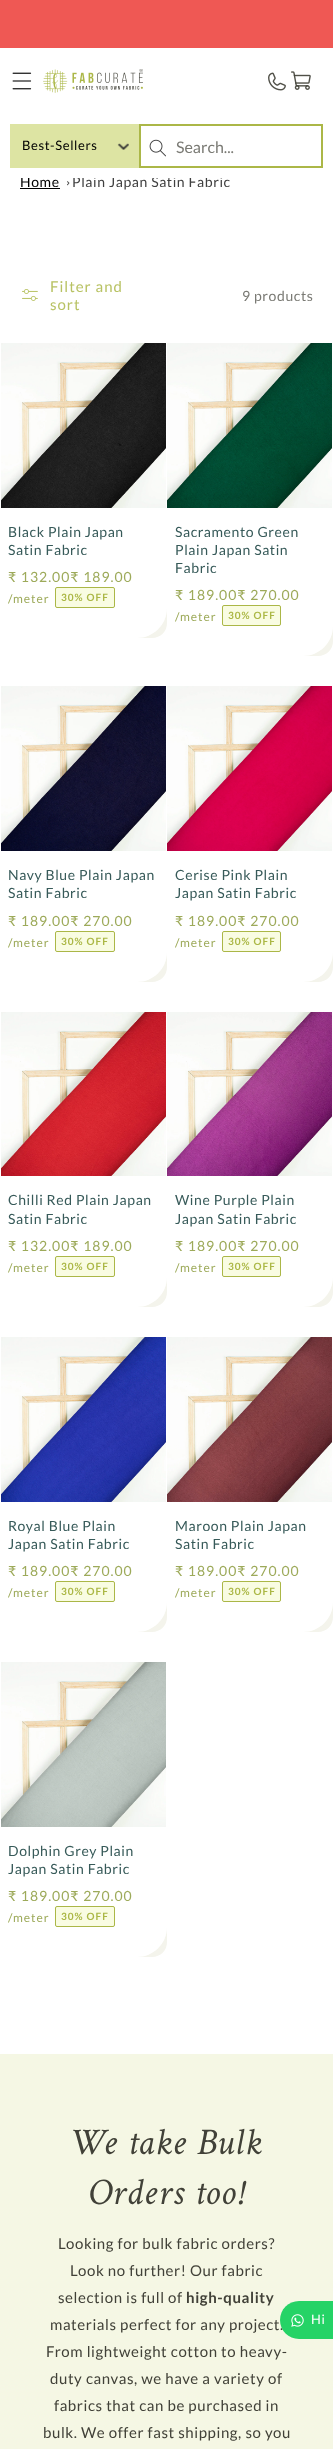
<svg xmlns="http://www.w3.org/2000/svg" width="333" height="2449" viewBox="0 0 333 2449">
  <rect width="100%" height="100%" fill="#fff"/>
  <path d="M0 0h333v48H0z" fill="#ef5854"/>
  <image x="12" y="72" width="20" height="18" href="img/1.png"/>
  <image x="43" y="69" width="100" height="24" href="img/2.png"/>
  <image x="268" y="72" width="18" height="19" href="img/3.png"/>
  <image x="291" y="71" width="20" height="19" href="img/4.png"/>
  <path d="M10 124h129v44H10z" fill="#dde4a3"/>
  <image x="117" y="143" width="12" height="7" href="img/5.png"/>
  <path d="M140 125h182v42H140z" fill="none" stroke="#abb747" stroke-width="2"/>
  <image x="149" y="139" width="17" height="18" href="img/6.png"/>
  <path d="M20 188h40v1H20z" fill="#000"/>
  <path d="M67.5 181L69.5 183H68.5L67 182ZM69.5 183L67.5 185.5L67 184.5L68.5 183Z" fill="#404040"/>
  <image x="22" y="289" width="16" height="12" href="img/7.png"/>
  <path d="M0 432H167V623C167 631.5 160.5 638 152 638H0Z" fill="#f4f4ec"/>
  <path d="M0 428H167V608C167 624.5 153.5 638 137 638H0Z" fill="#fff"/>
  <image x="1" y="343" width="165" height="165" href="img/8.png"/>
  <rect x="55.5" y="587.5" width="59" height="20" rx="1.5" fill="#f9fce2" stroke="#abb747"/>
  <path d="M167 437H333V641C333 649.5 326.5 656 318 656H167Z" fill="#f4f4ec"/>
  <path d="M167 428H333V626C333 642.5 319.5 656 303 656H167Z" fill="#fff"/>
  <image x="167" y="343" width="165" height="165" href="img/9.png"/>
  <rect x="222.5" y="605.5" width="58" height="20" rx="1.5" fill="#f9fce2" stroke="#abb747"/>
  <path d="M0 775H167V967C167 975.5 160.5 982 152 982H0Z" fill="#f4f4ec"/>
  <path d="M0 771H167V952C167 968.5 153.5 982 137 982H0Z" fill="#fff"/>
  <image x="1" y="686" width="165" height="165" href="img/10.png"/>
  <rect x="55.5" y="931.5" width="59" height="20" rx="1.5" fill="#f9fce2" stroke="#abb747"/>
  <path d="M167 775H333V967C333 975.5 326.5 982 318 982H167Z" fill="#f4f4ec"/>
  <path d="M167 771H333V952C333 968.5 319.5 982 303 982H167Z" fill="#fff"/>
  <image x="167" y="686" width="165" height="165" href="img/11.png"/>
  <rect x="222.5" y="931.5" width="58" height="20" rx="1.5" fill="#f9fce2" stroke="#abb747"/>
  <path d="M0 1100H167V1292C167 1300.5 160.5 1307 152 1307H0Z" fill="#f4f4ec"/>
  <path d="M0 1096H167V1277C167 1293.5 153.5 1307 137 1307H0Z" fill="#fff"/>
  <image x="1" y="1012" width="165" height="164" href="img/12.png"/>
  <rect x="55.5" y="1256.5" width="59" height="20" rx="1.5" fill="#f9fce2" stroke="#abb747"/>
  <path d="M167 1100H333V1292C333 1300.5 326.5 1307 318 1307H167Z" fill="#f4f4ec"/>
  <path d="M167 1096H333V1277C333 1293.5 319.5 1307 303 1307H167Z" fill="#fff"/>
  <image x="167" y="1012" width="165" height="164" href="img/13.png"/>
  <rect x="222.5" y="1256.5" width="58" height="20" rx="1.5" fill="#f9fce2" stroke="#abb747"/>
  <path d="M0 1425H167V1617C167 1625.5 160.5 1632 152 1632H0Z" fill="#f4f4ec"/>
  <path d="M0 1422H167V1602C167 1618.5 153.5 1632 137 1632H0Z" fill="#fff"/>
  <image x="1" y="1337" width="165" height="165" href="img/14.png"/>
  <rect x="55.5" y="1581.5" width="59" height="20" rx="1.5" fill="#f9fce2" stroke="#abb747"/>
  <path d="M167 1425H333V1617C333 1625.5 326.5 1632 318 1632H167Z" fill="#f4f4ec"/>
  <path d="M167 1422H333V1602C333 1618.5 319.5 1632 303 1632H167Z" fill="#fff"/>
  <image x="167" y="1337" width="165" height="165" href="img/15.png"/>
  <rect x="222.5" y="1581.5" width="58" height="20" rx="1.5" fill="#f9fce2" stroke="#abb747"/>
  <path d="M0 1751H167V1942C167 1950.5 160.5 1957 152 1957H0Z" fill="#f4f4ec"/>
  <path d="M0 1747H167V1927C167 1943.5 153.5 1957 137 1957H0Z" fill="#fff"/>
  <image x="1" y="1662" width="165" height="165" href="img/16.png"/>
  <rect x="55.5" y="1906.5" width="59" height="20" rx="1.5" fill="#f9fce2" stroke="#abb747"/>
  <path d="M0 2054h333v395H0z" fill="#f5f7e4"/>
  <text x="22" y="150" font-family="Lato" font-size="13" letter-spacing="0.6" fill="#000">Best-Sellers</text>
  <text x="176" y="153" font-family="Lato" font-size="16" fill="#7a7a74">Search...</text>
  <text x="20" y="187" font-family="Lato" font-size="14" letter-spacing="0.6" fill="#000">Home</text>
  <text x="72" y="187" font-family="Lato" font-size="14" letter-spacing="0.6" fill="#404040">Plain Japan Satin Fabric</text>
  <path d="M21 176h202v2H21z" fill="#fff"/>
  <g font-family="Lato" font-size="15" letter-spacing="1" fill="#b8c263">
    <text x="50" y="292">Filter and</text>
    <text x="50" y="310">sort</text>
  </g>
  <text x="242" y="301" font-family="Lato" font-size="14" letter-spacing="0.6" fill="#7a7a74">9 products</text>
  <g font-family="Lato" font-size="14" letter-spacing="0.6" fill="#375a59">
    <text x="8" y="537">Black Plain Japan</text>
    <text x="8" y="555">Satin Fabric</text>
  </g>
  <text x="8" y="582" font-family="Lato" font-size="14" letter-spacing="1" fill="#9daa5a">₹ 132.00₹ 189.00</text>
  <text x="8" y="603" font-family="Lato" font-size="12" letter-spacing="1" fill="#9daa5a">/meter</text>
  <text x="61" y="601" font-family="Lato" font-size="10" font-weight="bold" letter-spacing="1" fill="#abb745">30% OFF</text>
  <g font-family="Lato" font-size="14" letter-spacing="0.6" fill="#375a59">
    <text x="175" y="537">Sacramento Green</text>
    <text x="175" y="555">Plain Japan Satin</text>
    <text x="175" y="573">Fabric</text>
  </g>
  <text x="175" y="600" font-family="Lato" font-size="14" letter-spacing="1" fill="#9daa5a">₹ 189.00₹ 270.00</text>
  <text x="175" y="621" font-family="Lato" font-size="12" letter-spacing="1" fill="#9daa5a">/meter</text>
  <text x="228" y="619" font-family="Lato" font-size="10" font-weight="bold" letter-spacing="1" fill="#abb745">30% OFF</text>
  <g font-family="Lato" font-size="14" letter-spacing="0.6" fill="#375a59">
    <text x="8" y="880">Navy Blue Plain Japan</text>
    <text x="8" y="898">Satin Fabric</text>
  </g>
  <text x="8" y="926" font-family="Lato" font-size="14" letter-spacing="1" fill="#9daa5a">₹ 189.00₹ 270.00</text>
  <text x="8" y="947" font-family="Lato" font-size="12" letter-spacing="1" fill="#9daa5a">/meter</text>
  <text x="61" y="945" font-family="Lato" font-size="10" font-weight="bold" letter-spacing="1" fill="#abb745">30% OFF</text>
  <g font-family="Lato" font-size="14" letter-spacing="0.6" fill="#375a59">
    <text x="175" y="880">Cerise Pink Plain</text>
    <text x="175" y="898">Japan Satin Fabric</text>
  </g>
  <text x="175" y="926" font-family="Lato" font-size="14" letter-spacing="1" fill="#9daa5a">₹ 189.00₹ 270.00</text>
  <text x="175" y="947" font-family="Lato" font-size="12" letter-spacing="1" fill="#9daa5a">/meter</text>
  <text x="228" y="945" font-family="Lato" font-size="10" font-weight="bold" letter-spacing="1" fill="#abb745">30% OFF</text>
  <g font-family="Lato" font-size="14" letter-spacing="0.6" fill="#375a59">
    <text x="8" y="1205">Chilli Red Plain Japan</text>
    <text x="8" y="1224">Satin Fabric</text>
  </g>
  <text x="8" y="1251" font-family="Lato" font-size="14" letter-spacing="1" fill="#9daa5a">₹ 132.00₹ 189.00</text>
  <text x="8" y="1272" font-family="Lato" font-size="12" letter-spacing="1" fill="#9daa5a">/meter</text>
  <text x="61" y="1270" font-family="Lato" font-size="10" font-weight="bold" letter-spacing="1" fill="#abb745">30% OFF</text>
  <g font-family="Lato" font-size="14" letter-spacing="0.6" fill="#375a59">
    <text x="175" y="1205">Wine Purple Plain</text>
    <text x="175" y="1224">Japan Satin Fabric</text>
  </g>
  <text x="175" y="1251" font-family="Lato" font-size="14" letter-spacing="1" fill="#9daa5a">₹ 189.00₹ 270.00</text>
  <text x="175" y="1272" font-family="Lato" font-size="12" letter-spacing="1" fill="#9daa5a">/meter</text>
  <text x="228" y="1270" font-family="Lato" font-size="10" font-weight="bold" letter-spacing="1" fill="#abb745">30% OFF</text>
  <g font-family="Lato" font-size="14" letter-spacing="0.6" fill="#375a59">
    <text x="8" y="1531">Royal Blue Plain</text>
    <text x="8" y="1549">Japan Satin Fabric</text>
  </g>
  <text x="8" y="1576" font-family="Lato" font-size="14" letter-spacing="1" fill="#9daa5a">₹ 189.00₹ 270.00</text>
  <text x="8" y="1597" font-family="Lato" font-size="12" letter-spacing="1" fill="#9daa5a">/meter</text>
  <text x="61" y="1595" font-family="Lato" font-size="10" font-weight="bold" letter-spacing="1" fill="#abb745">30% OFF</text>
  <g font-family="Lato" font-size="14" letter-spacing="0.6" fill="#375a59">
    <text x="175" y="1531">Maroon Plain Japan</text>
    <text x="175" y="1549">Satin Fabric</text>
  </g>
  <text x="175" y="1576" font-family="Lato" font-size="14" letter-spacing="1" fill="#9daa5a">₹ 189.00₹ 270.00</text>
  <text x="175" y="1597" font-family="Lato" font-size="12" letter-spacing="1" fill="#9daa5a">/meter</text>
  <text x="228" y="1595" font-family="Lato" font-size="10" font-weight="bold" letter-spacing="1" fill="#abb745">30% OFF</text>
  <g font-family="Lato" font-size="14" letter-spacing="0.6" fill="#375a59">
    <text x="8" y="1856">Dolphin Grey Plain</text>
    <text x="8" y="1874">Japan Satin Fabric</text>
  </g>
  <text x="8" y="1901" font-family="Lato" font-size="14" letter-spacing="1" fill="#9daa5a">₹ 189.00₹ 270.00</text>
  <text x="8" y="1922" font-family="Lato" font-size="12" letter-spacing="1" fill="#9daa5a">/meter</text>
  <text x="61" y="1920" font-family="Lato" font-size="10" font-weight="bold" letter-spacing="1" fill="#abb745">30% OFF</text>
  <g font-family="Metal" font-size="37.75" letter-spacing="0.6" fill="#414138">
    <text x="69" y="2154">We take Bulk</text>
    <text x="88" y="2204">Orders too!</text>
  </g>
  <g font-family="Lato" font-size="15" letter-spacing="0.6" fill="#414138">
    <text x="58" y="2249">Looking for bulk fabric orders?</text>
    <text x="70" y="2276">Look no further! Our fabric</text>
    <text x="58" y="2303">selection is full of</text>
  </g>
  <text x="186" y="2303" font-family="Lato" font-size="15" font-weight="bold" letter-spacing="0.6" fill="#414138">high-quality</text>
  <g font-family="Lato" font-size="15" letter-spacing="0.6" fill="#414138">
    <text x="50" y="2330">materials perfect for any project.</text>
    <text x="46" y="2357">From lightweight cotton to heavy-</text>
    <text x="50" y="2384">duty canvas, we have a variety of</text>
    <text x="54" y="2411">fabrics that can be purchased in</text>
    <text x="43" y="2438">bulk. We offer fast shipping, so you</text>
  </g>
  <path d="M299 2301H333V2339H299C288.5 2339 280 2330.5 280 2320C280 2309.5 288.5 2301 299 2301Z" fill="#25d366"/>
  <image x="291" y="2314" width="13" height="13" href="img/17.png"/>
  <text x="311" y="2324" font-family="Lato" font-size="13" letter-spacing="0.6" fill="#fff">Hi</text>
</svg>
